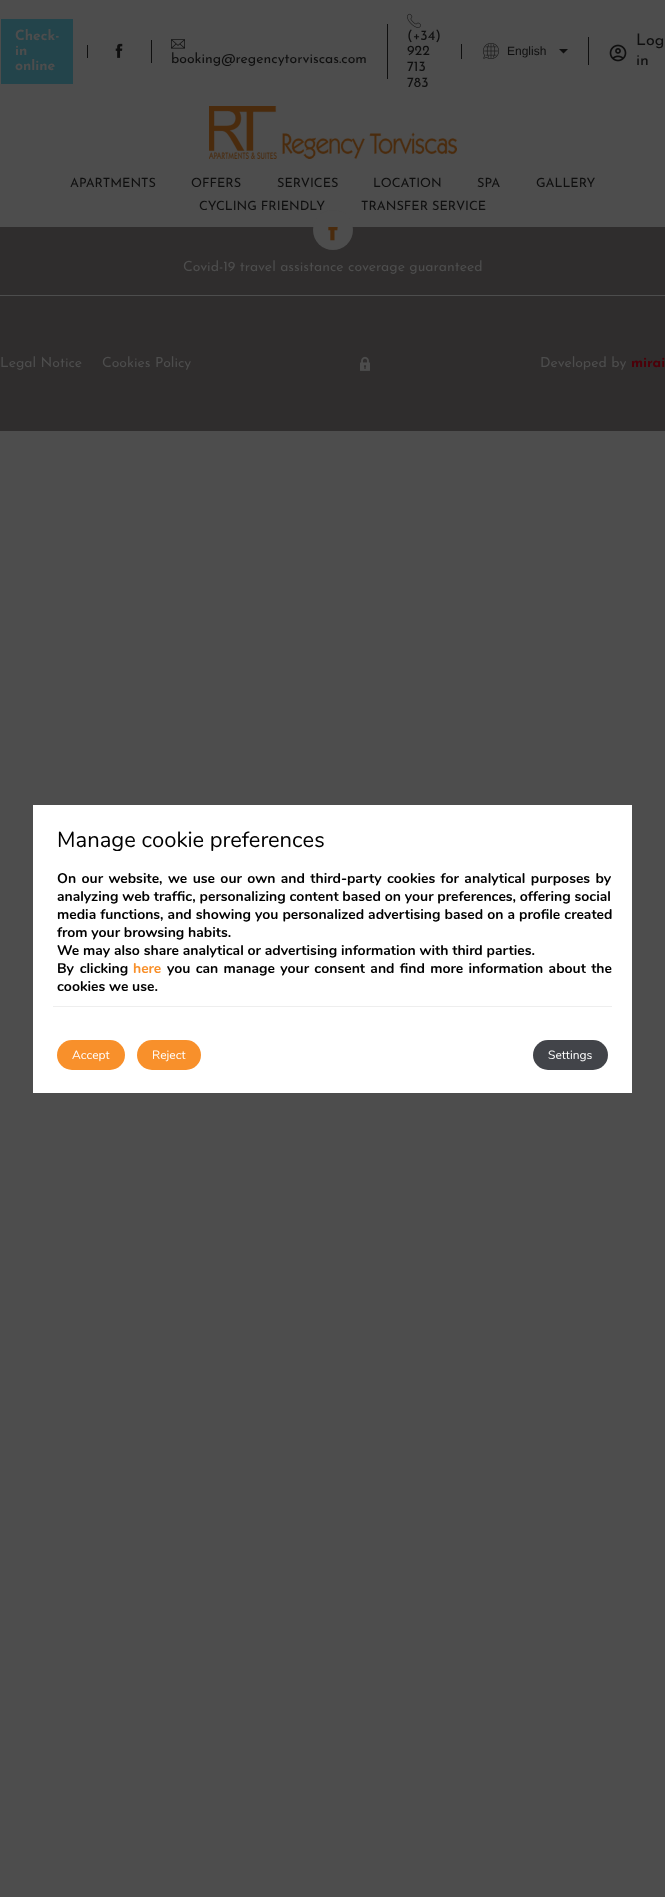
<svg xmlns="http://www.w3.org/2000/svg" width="665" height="1897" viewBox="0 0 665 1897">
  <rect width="100%" height="100%" fill="#4d4d4d"/>
  <path d="M1 19h72v65H1z" fill="#23444b"/>
  <path d="M87 45h1v13H87z" fill="#0f0f0f"/>
  <image x="115" y="43" width="8" height="15" href="img/1.png"/>
  <path d="M151 40h1v23H151z" fill="#0f0f0f"/>
  <image x="171" y="39" width="14" height="10" href="img/2.png"/>
  <path d="M387 24h1v55H387z" fill="#0f0f0f"/>
  <image x="407" y="13" width="14" height="15" href="img/3.png"/>
  <path d="M461 44h1v15H461z" fill="#0f0f0f"/>
  <image x="483" y="43" width="16" height="16" href="img/4.png"/>
  <path d="M559 49L563.5 53.5L568 49Z" fill="#0f0f0f"/>
  <path d="M588 37h1v28H588z" fill="#0f0f0f"/>
  <image x="609" y="44" width="18" height="18" href="img/5.png"/>
  <image x="209" y="106" width="248" height="53" href="img/6.png"/>
  <path d="M0 227h665v68H0z" fill="#2f2d2d"/>
  <circle cx="333" cy="230" r="20" fill="#4d4d4d"/>
  <image x="328" y="227" width="10" height="14" href="img/7.png"/>
  <path d="M0 296h665v135H0z" fill="#2f2d2d"/>
  <image x="360" y="356" width="10" height="15" href="img/8.png"/>
  <path d="M33 805h599v288H33z" fill="#fff"/>
  <path d="M53 1006h559v1H53z" fill="#eee"/>
  <rect x="57" y="1040" width="68" height="30" rx="15" fill="#f8902b"/>
  <rect x="137" y="1040" width="64" height="30" rx="15" fill="#f8902b"/>
  <rect x="533" y="1040" width="75" height="30" rx="15" fill="#424449"/>
  <g font-family="Josefin Sans" font-size="14" font-weight="bold" fill="#4d4d4d">
    <text x="15" y="40">Check-</text>
    <text x="15" y="55">in</text>
    <text x="15" y="70">online</text>
  </g>
  <g font-family="Josefin Sans" font-size="14" fill="#0f0f0f">
    <text x="171" y="63">booking@regencytorviscas.com</text>
    <text x="407" y="40">(+34)</text>
    <text x="407" y="55">922</text>
    <text x="407" y="71">713</text>
    <text x="407" y="87">783</text>
  </g>
  <text x="507" y="55" font-family="Liberation Sans" font-size="12" fill="#0f0f0f">English</text>
  <g font-family="Josefin Sans" font-size="16" fill="#0f0f0f">
    <text x="636" y="45">Log</text>
    <text x="636" y="65">in</text>
  </g>
  <g font-family="Josefin Sans" font-size="12.75" fill="#0f0f0f">
    <text x="70" y="187">APARTMENTS</text>
    <text x="191" y="187">OFFERS</text>
    <text x="277" y="187">SERVICES</text>
    <text x="373" y="187">LOCATION</text>
    <text x="477" y="187">SPA</text>
    <text x="536" y="187">GALLERY</text>
    <text x="199" y="210">CYCLING FRIENDLY</text>
    <text x="361" y="210">TRANSFER SERVICE</text>
  </g>
  <g font-family="Josefin Sans" font-size="14" fill="#4d4d4d">
    <text x="183" y="271">Covid-19 travel assistance coverage guaranteed</text>
    <text x="0" y="367">Legal Notice</text>
    <text x="102" y="367">Cookies Policy</text>
    <text x="540" y="367">Developed by</text>
  </g>
  <text x="631" y="367" font-family="Josefin Sans" font-size="14" font-weight="bold" fill="#4d0009">mirai</text>
  <text x="57" y="847" font-family="Nunito" font-size="22" fill="#000">Manage cookie preferences</text>
  <g font-family="Nunito" font-size="14" font-weight="bold" fill="#000">
    <text x="57" y="883" word-spacing="1.6">On our website, we use our own and third-party cookies for analytical purposes by</text>
    <text x="57" y="901">analyzing web traffic, personalizing content based on your preferences, offering social</text>
    <text x="57" y="919" word-spacing="0.25">media functions, and showing you personalized advertising based on a profile created</text>
    <text x="57" y="937">from your browsing habits.</text>
    <text x="57" y="955">We may also share analytical or advertising information with third parties.</text>
    <text x="57" y="973" word-spacing="2">By clicking</text>
  </g>
  <text x="133" y="973" font-family="Nunito" font-size="14" font-weight="bold" fill="#f8902b">here</text>
  <g font-family="Nunito" font-size="14" font-weight="bold" fill="#000">
    <text x="167" y="973" word-spacing="1.5">you can manage your consent and find more information about the</text>
    <text x="57" y="991">cookies we use.</text>
  </g>
  <g font-family="Nunito" font-size="12" fill="#fff">
    <text x="72" y="1059">Accept</text>
    <text x="152" y="1059">Reject</text>
    <text x="548" y="1059">Settings</text>
  </g>
</svg>
